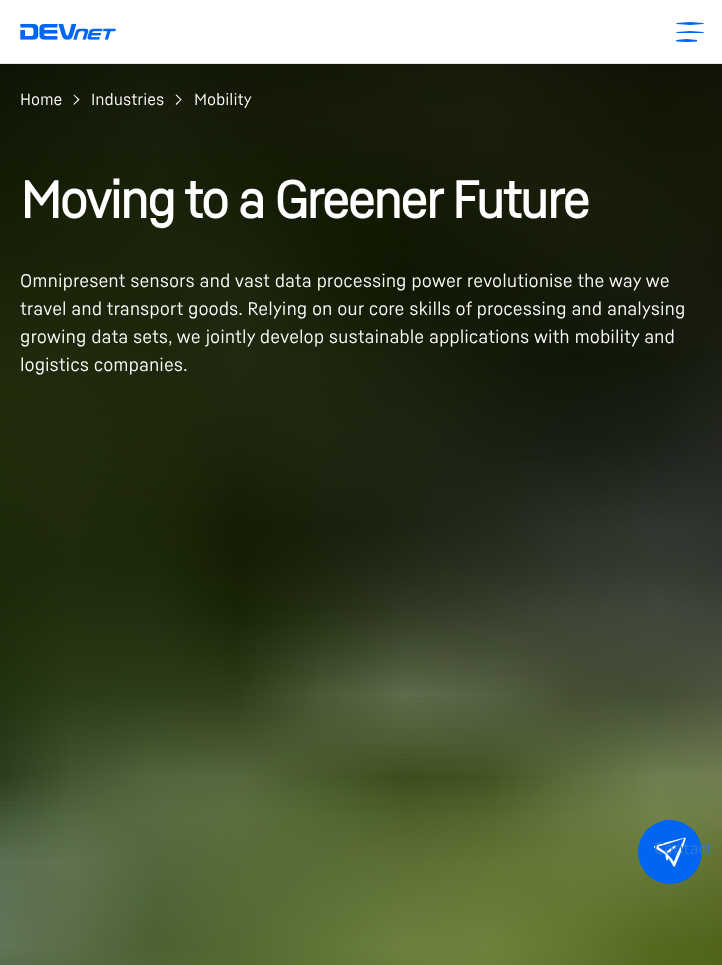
<svg xmlns="http://www.w3.org/2000/svg" width="722" height="965" viewBox="0 0 722 965">
  <defs>
    <clipPath id="clip1"><path d="M676 31h28v2H676z"/></clipPath>
  </defs>
  <rect width="100%" height="100%" fill="#fff"/>
  <image x="0" y="64" width="722" height="901" href="img/1.png"/>
  <path d="M73.5 95L74 94.5L79.5 99.5L78.5 100.5Z" fill="#fff"/>
  <path d="M73.5 104L78.5 99L79.5 99.5L74 105Z" fill="#fff"/>
  <path d="M175.5 95L176.5 94.5L181.5 99.5L181 100.5Z" fill="#fff"/>
  <path d="M175.5 104L181 99L181.5 99.5L176.5 105Z" fill="#fff"/>
  <path d="M0 63h722v1H0z" fill="#e9e9e9"/>
  <image x="20" y="23" width="96" height="17" href="img/2.png"/>
  <path d="M676.5 24L690 25L703.5 24V23L690 22L676.5 23ZM697 40L686.5 39L676 40L676.5 41.5L686.5 42L697 41.5Z" fill="#0065f2"/>
  <g clip-path="url(#clip1)">
    <path d="M676.5 33L690 34L703.5 33V32L690 31L676.5 32Z" fill="#0065f2"/>
  </g>
  <circle cx="670" cy="852" r="32" fill="#0065f2"/>
  <image x="654" y="837" width="32" height="30" href="img/3.png"/>
  <g font-family="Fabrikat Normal" font-size="16" fill="#fff">
    <text x="20" y="105">Home</text>
    <text x="91" y="105">Industries</text>
    <text x="194" y="105">Mobility</text>
  </g>
  <text x="20" y="218" font-family="Fabrikat Normal" font-size="51.25" font-weight="bold" letter-spacing="-2.55" fill="#fff">Moving to a Greener Future</text>
  <g font-family="Fabrikat Normal" font-size="18" fill="#fff">
    <text x="20" y="287">Omnipresent sensors and vast data processing power revolutionise the way we</text>
    <text x="20" y="315">travel and transport goods. Relying on our core skills of processing and analysing</text>
    <text x="20" y="343">growing data sets, we jointly develop sustainable applications with mobility and</text>
    <text x="20" y="371">logistics companies.</text>
  </g>
  <text x="654" y="854" font-family="Noto Sans" font-size="16" fill="#2f7ad3">Contact</text>
</svg>
